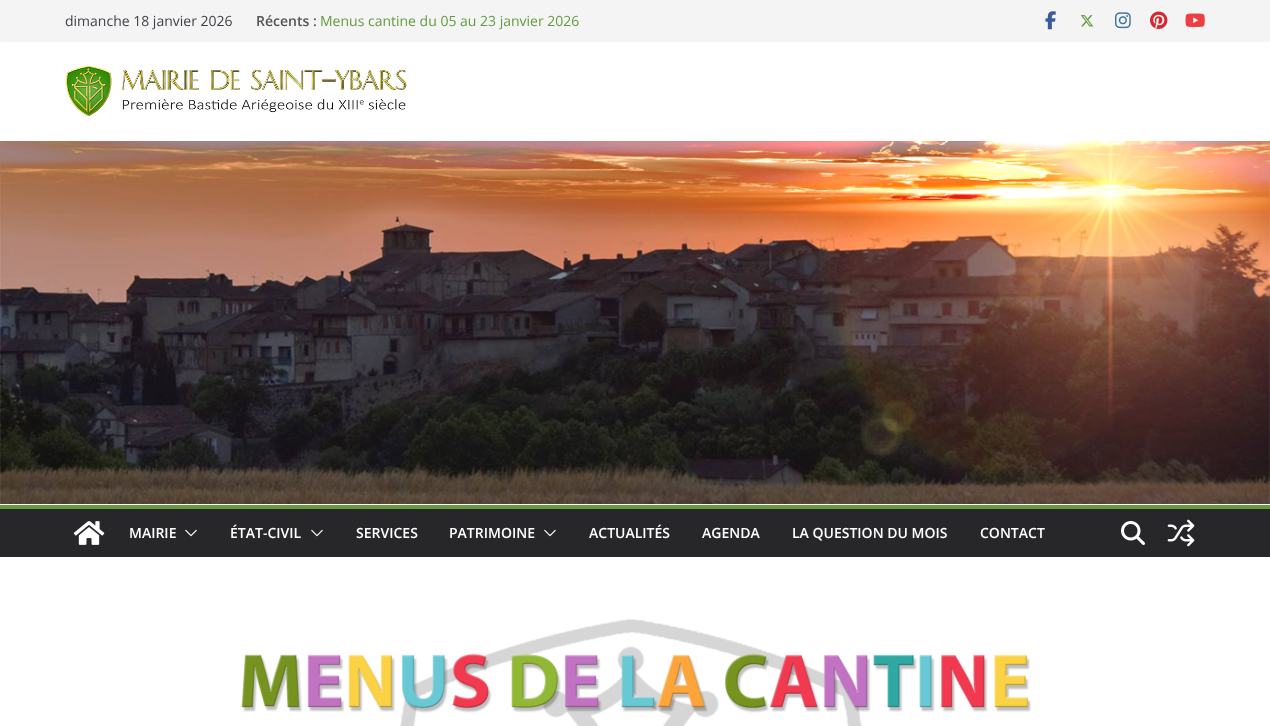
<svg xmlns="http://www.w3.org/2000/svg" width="1270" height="726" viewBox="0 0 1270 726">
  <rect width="100%" height="100%" fill="#fff"/>
  <path d="M0 0h1270v41H0z" fill="#0000001a" filter="blur(1px)"/>
  <path d="M0 0h1270v41H0z" fill="#f4f4f5"/>
  <image x="1045" y="11" width="11" height="19" href="img/1.png"/>
  <image x="1080" y="15" width="14" height="12" href="img/2.png"/>
  <image x="1115" y="12" width="16" height="17" href="img/3.png"/>
  <image x="1150" y="11" width="18" height="18" href="img/4.png"/>
  <image x="1185" y="13" width="20" height="14" href="img/5.png"/>
  <image x="65" y="65" width="342" height="51" href="img/6.png"/>
  <image x="0" y="141" width="1270" height="363" href="img/7.png"/>
  <path d="M0 509h1270v48H0z" fill="#27272a"/>
  <path d="M0 505h1270v4H0z" fill="#649b3f"/>
  <image x="73" y="521" width="32" height="24" href="img/8.png"/>
  <image x="185" y="529" width="12" height="8" href="img/9.png"/>
  <image x="311" y="529" width="12" height="8" href="img/9.png"/>
  <image x="544" y="529" width="12" height="8" href="img/9.png"/>
  <image x="1121" y="521" width="24" height="24" href="img/10.png"/>
  <image x="1167" y="519" width="28" height="28" href="img/11.png"/>
  <image x="241" y="619" width="790" height="107" href="img/12.png"/>
  <text x="65" y="26" font-family="Open Sans" font-size="14" fill="#3f3f46">dimanche 18 janvier 2026</text>
  <text x="256" y="26" font-family="Open Sans" font-size="14" font-weight="600" fill="#555">Récents :</text>
  <text x="320" y="26" font-family="Open Sans" font-size="14" fill="#649b3f">Menus cantine du 05 au 23 janvier 2026</text>
  <g font-family="Open Sans" font-size="14" font-weight="600" fill="#fff">
    <text x="129" y="538">MAIRIE</text>
    <text x="230" y="538">ÉTAT-CIVIL</text>
    <text x="356" y="538">SERVICES</text>
    <text x="449" y="538">PATRIMOINE</text>
    <text x="589" y="538">ACTUALITÉS</text>
    <text x="702" y="538">AGENDA</text>
    <text x="792" y="538">LA QUESTION DU MOIS</text>
    <text x="980" y="538">CONTACT</text>
  </g>
</svg>
